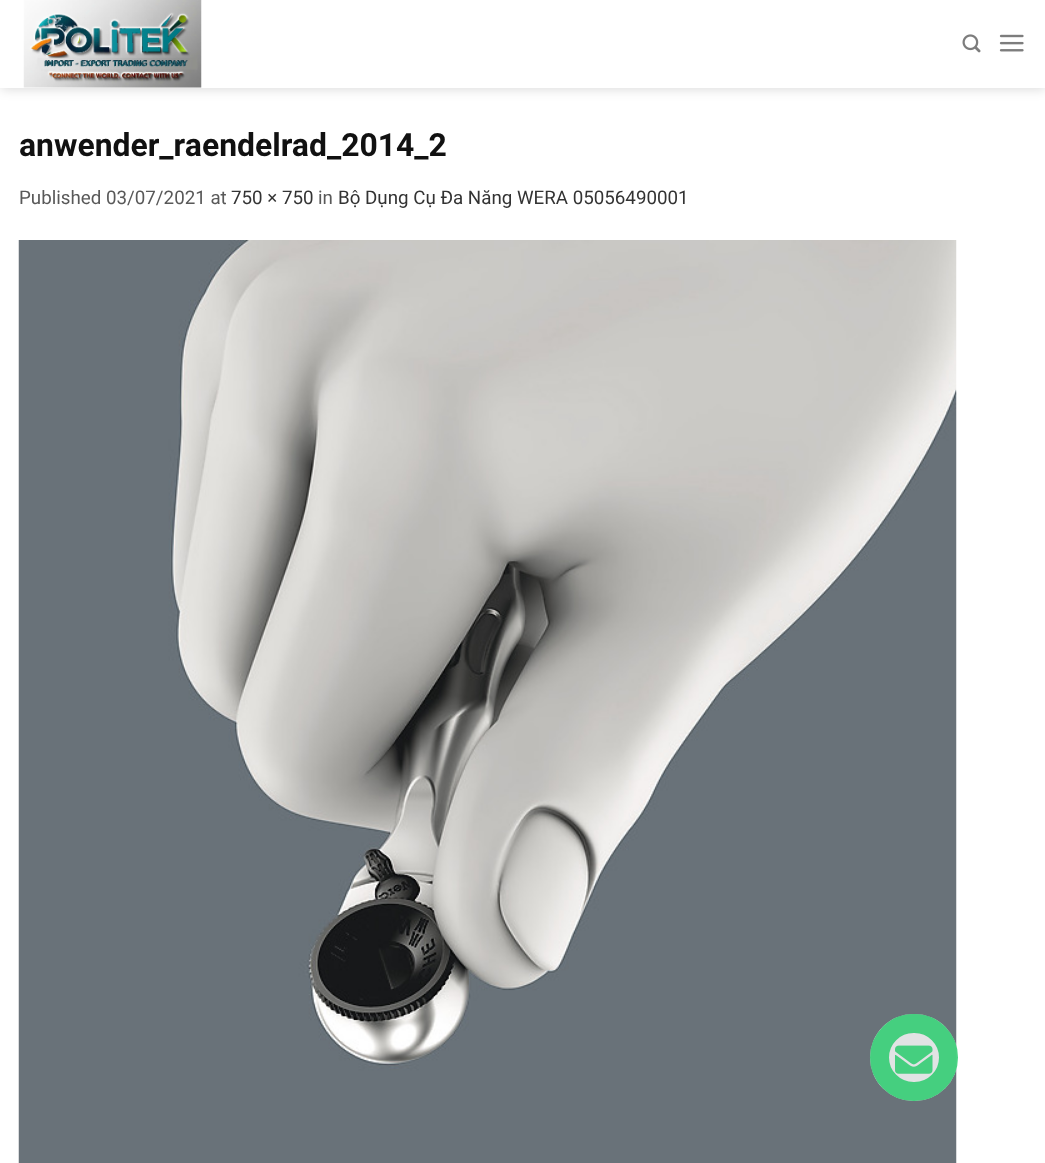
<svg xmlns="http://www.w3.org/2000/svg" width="1045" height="1163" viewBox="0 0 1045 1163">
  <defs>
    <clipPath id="clip1"><path d="M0 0H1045V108H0ZM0 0H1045V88H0Z" clip-rule="evenodd"/></clipPath>
  </defs>
  <rect width="100%" height="100%" fill="#fff"/>
  <g clip-path="url(#clip1)">
    <path d="M1 1h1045v88H1z" fill="#00000026" filter="blur(6px)"/>
  </g>
  <image x="23" y="0" width="179" height="88" href="img/1.png"/>
  <image x="962" y="34" width="19" height="19" href="img/2.png"/>
  <image x="999" y="34" width="25" height="18" href="img/3.png"/>
  <image x="18" y="240" width="939" height="923" href="img/4.png"/>
  <rect x="870" y="1014" width="88" height="87" rx="43.5" fill="#ffffffcc"/>
  <rect x="879.5" y="1023.5" width="69" height="68" rx="34" fill="none" stroke="#1ec965cc" stroke-width="19"/>
  <image x="895" y="1045" width="38" height="29" href="img/5.png"/>
  <text x="19" y="156" font-family="Roboto" font-size="31.9" font-weight="bold" fill="#111">anwender_raendelrad_2014_2</text>
  <text x="19" y="204" font-family="Roboto" font-size="18.75" fill="#595959">Published 03/07/2021 at</text>
  <text x="231" y="204" font-family="Roboto" font-size="18.75" fill="#333">750 × 750</text>
  <text x="318" y="204" font-family="Roboto" font-size="18.75" fill="#595959">in</text>
  <text x="338" y="204" font-family="Roboto" font-size="18.75" fill="#333">Bộ Dụng Cụ Đa Năng WERA 05056490001</text>
</svg>
